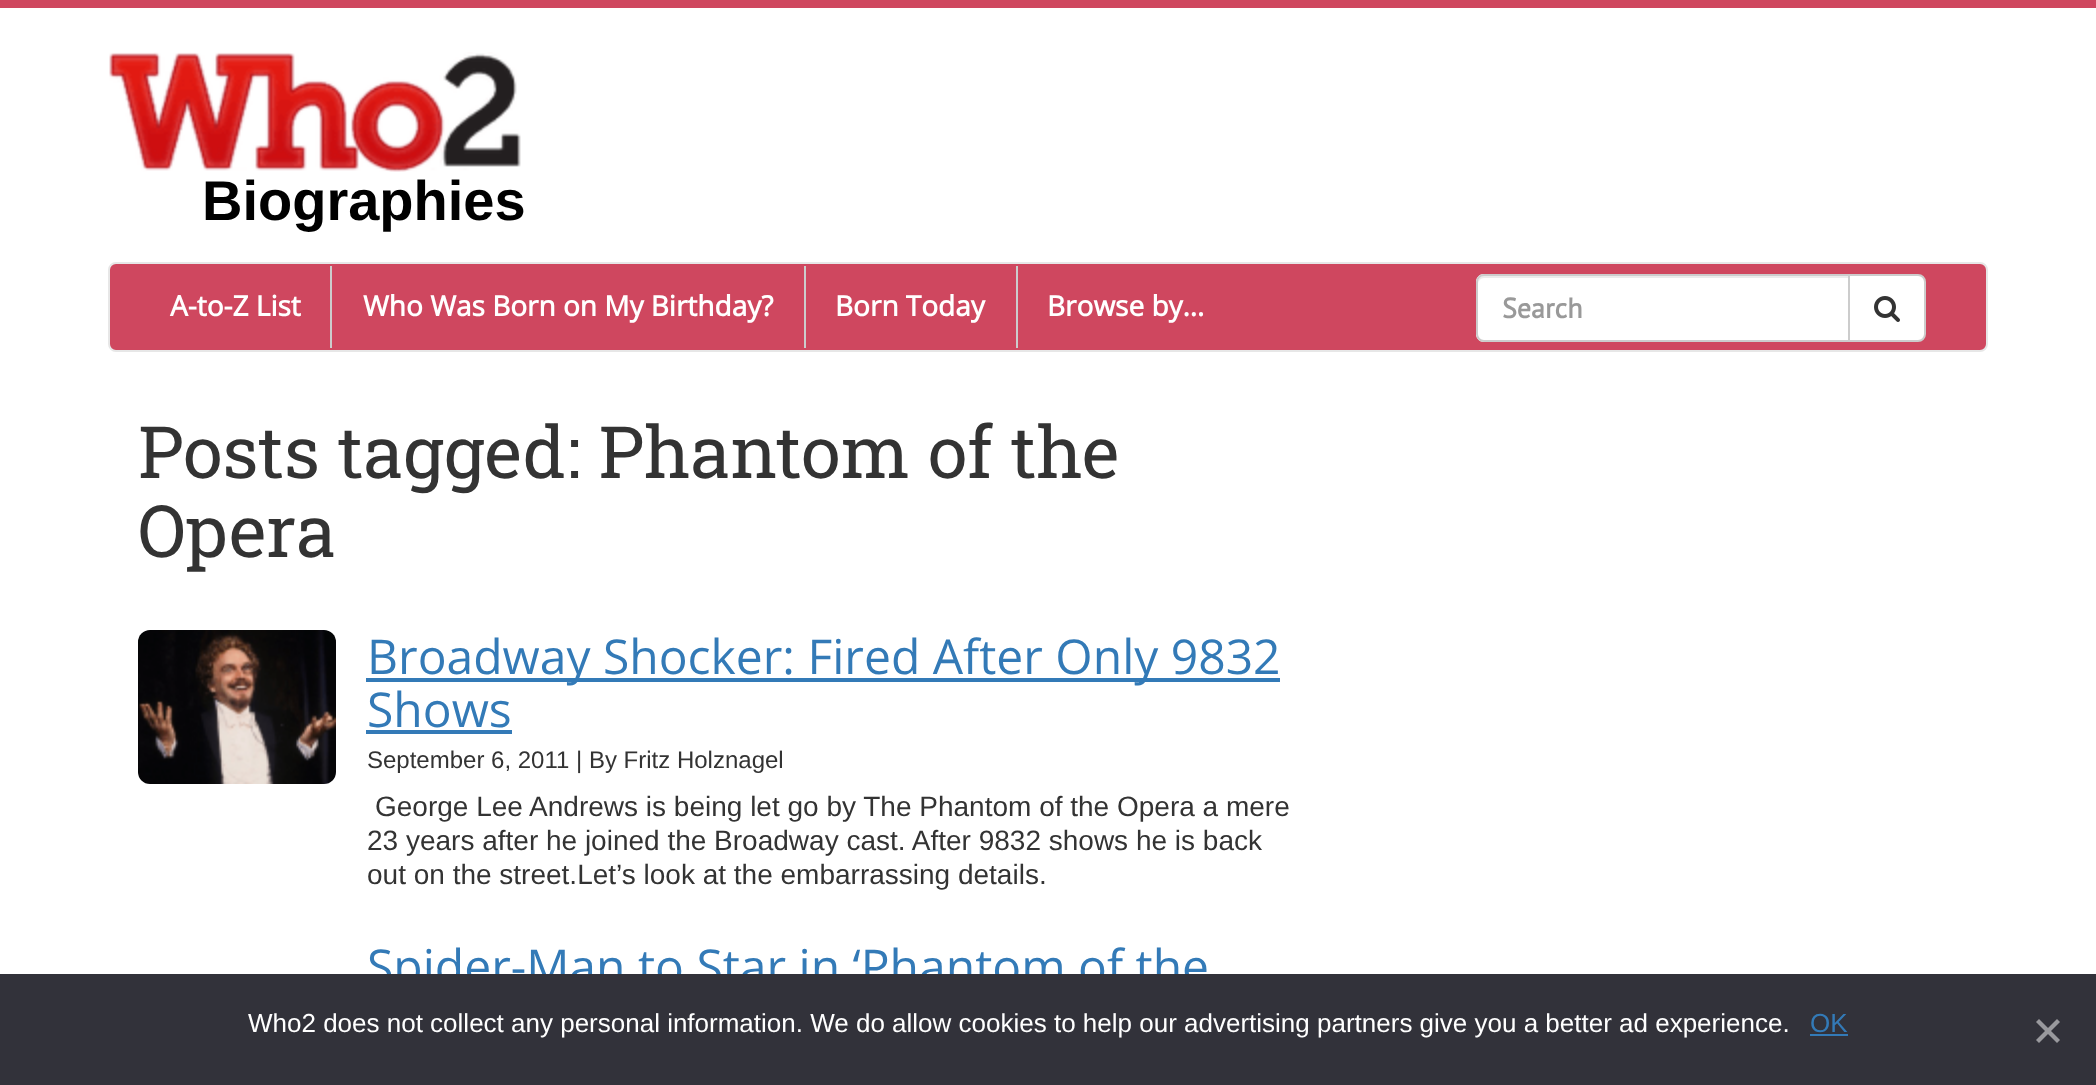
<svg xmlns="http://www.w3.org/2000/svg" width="2096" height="1085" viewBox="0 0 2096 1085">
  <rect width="100%" height="100%" fill="#fff"/>
  <path d="M0 0h2096v8H0z" fill="#cf475f"/>
  <image x="109" y="52" width="412" height="120" href="img/1.png"/>
  <rect x="109" y="263" width="1878" height="88" rx="7" fill="#cf475f" stroke="#e7e7e7" stroke-width="2"/>
  <path d="M330 266h2v82H330z" fill="#ccc"/>
  <path d="M804 266h2v82H804z" fill="#ccc"/>
  <path d="M1016 266h2v82H1016z" fill="#ccc"/>
  <path d="M1484 274H1850V342H1484C1479.5 342 1476 338.5 1476 334V282C1476 277.5 1479.5 274 1484 274Z" fill="#fff"/>
  <path d="M1484 278H1848V276H1484C1479 276 1478 280 1478 284C1478 281 1481 278 1484 278Z" fill="#ececec"/>
  <path d="M1484 275H1849V341H1484C1480 341 1477 338 1477 334V282C1477 278 1480 275 1484 275Z" fill="none" stroke="#ccc" stroke-width="2"/>
  <path d="M1849 275H1918C1922 275 1925 278 1925 282V334C1925 338 1922 341 1918 341H1849Z" fill="#fff" stroke="#ccc" stroke-width="2"/>
  <image x="1874" y="296" width="26" height="26" href="img/2.png"/>
  <image x="138" y="630" width="198" height="154" href="img/3.png"/>
  <path d="M366 678h914v4H366z" fill="#337ab7"/>
  <path d="M366 730h146v4H366z" fill="#337ab7"/>
  <text x="202" y="220" font-family="Liberation Sans" font-size="56" font-weight="bold" fill="#000">Biographies</text>
  <g font-family="Open Sans" font-size="28" font-weight="bold" fill="#fff">
    <text x="170" y="316">A-to-Z List</text>
    <text x="363" y="316">Who Was Born on My Birthday?</text>
    <text x="835" y="316">Born Today</text>
    <text x="1047" y="316">Browse by…</text>
  </g>
  <text x="1502" y="318" font-family="PT Sans" font-size="28" font-weight="bold" fill="#999">Search</text>
  <g font-family="Roboto Slab" font-size="72" fill="#333">
    <text x="138" y="478">Posts tagged: Phantom of the</text>
    <text x="138" y="557">Opera</text>
  </g>
  <g font-family="Open Sans" font-size="48" fill="#337ab7">
    <text x="367" y="674">Broadway Shocker: Fired After Only 9832</text>
    <text x="367" y="727">Shows</text>
  </g>
  <text x="367" y="768" font-family="Liberation Sans" font-size="24" fill="#333">September 6, 2011 | By Fritz Holznagel</text>
  <g font-family="Liberation Sans" font-size="28" fill="#333">
    <text x="375" y="816">George Lee Andrews is being let go by The Phantom of the Opera a mere</text>
    <text x="367" y="850">23 years after he joined the Broadway cast. After 9832 shows he is back</text>
    <text x="367" y="884">out on the street.Let’s look at the embarrassing details.</text>
  </g>
  <text x="367" y="984" font-family="Open Sans" font-size="48" fill="#337ab7">Spider-Man to Star in ‘Phantom of the</text>
  <path d="M0 974h2096v111H0z" fill="#32323a"/>
  <text x="248" y="1032" font-family="Liberation Sans" font-size="26" fill="#fff">Who2 does not collect any personal information. We do allow cookies to help our advertising partners give you a better ad experience.</text>
  <text x="1810" y="1032" font-family="Liberation Sans" font-size="26" fill="#337ab7">OK</text>
  <path d="M1810 1034h38v2H1810z" fill="#337ab7"/>
  <path d="M2057 1019L2060 1022L2039 1043L2036 1040Z" fill="#99999d"/>
  <path d="M2036 1022L2039 1019L2060 1040L2057 1043Z" fill="#99999d"/>
</svg>
